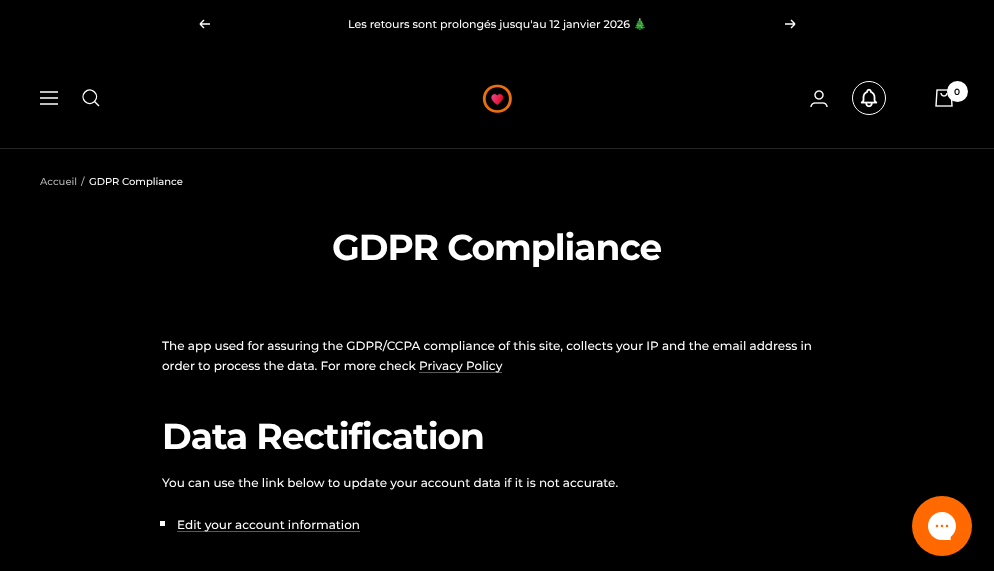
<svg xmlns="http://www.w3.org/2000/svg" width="994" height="571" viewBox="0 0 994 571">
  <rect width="100%" height="100%" fill="#000"/>
  <path d="M210 24H200M200 24L204 28M200 24L204 20" fill="none" stroke="#fff" stroke-width="1.4"/>
  <path d="M785 24H795M795 24L791 28M795 24L791 20" fill="none" stroke="#fff" stroke-width="1.4"/>
  <path d="M0 148h994v1H0z" fill="#262626"/>
  <path d="M40 92H58M40 104H58ZM40 98H58ZM94.5 101.5C100.5 95 91.5 86 85 92C79 98.5 88 107.5 94.5 101.5ZM94.5 101.5L99 106" fill="none" stroke="#fff" stroke-width="1.4"/>
  <image x="482" y="84" width="30" height="29" href="img/1.png"/>
  <image x="810" y="90" width="18" height="17" href="img/2.png"/>
  <circle cx="869" cy="98" r="16.5" fill="none" stroke="#fff"/>
  <image x="860" y="88" width="18" height="20" href="img/3.png"/>
  <image x="935" y="89" width="18" height="18" href="img/4.png"/>
  <circle cx="957.5" cy="91.5" r="10.5" fill="#fff"/>
  <path d="M419 372h83v1H419z" fill="#595959"/>
  <path d="M160 521h5v5H160z" fill="#fff"/>
  <path d="M177 531h183v1H177z" fill="#595959"/>
  <image x="912" y="496" width="60" height="60" href="img/5.png"/>
  <text x="348" y="28" font-family="Montserrat" font-size="11" font-weight="500" fill="#fff">Les retours sont prolongés jusqu'au 12 janvier 2026</text>
  <text x="633" y="28" font-family="Noto Color Emoji" font-size="11" fill="#fff">🎄</text>
  <text x="954" y="95" font-family="Montserrat" font-size="9" font-weight="600" fill="#000">0</text>
  <g font-family="Montserrat" font-size="10" font-weight="500" fill="#b3b3b3">
    <text x="40" y="185">Accueil</text>
    <text x="81" y="185">/</text>
  </g>
  <text x="89" y="185" font-family="Montserrat" font-size="10" font-weight="500" fill="#fff">GDPR Compliance</text>
  <text x="332" y="260" font-family="Montserrat" font-size="36" font-weight="bold" letter-spacing="-1" fill="#fff">GDPR Compliance</text>
  <g font-family="Montserrat" font-size="12" font-weight="500" fill="#fff">
    <text x="162" y="350">The app used for assuring the GDPR/CCPA compliance of this site, collects your IP and the email address in</text>
    <text x="162" y="370">order to process the data. For more check</text>
    <text x="419" y="370">Privacy Policy</text>
  </g>
  <text x="162" y="449" font-family="Montserrat" font-size="36" font-weight="bold" letter-spacing="-1" fill="#fff">Data Rectification</text>
  <g font-family="Montserrat" font-size="12" font-weight="500" fill="#fff">
    <text x="162" y="487">You can use the link below to update your account data if it is not accurate.</text>
    <text x="177" y="529">Edit your account information</text>
  </g>
</svg>
